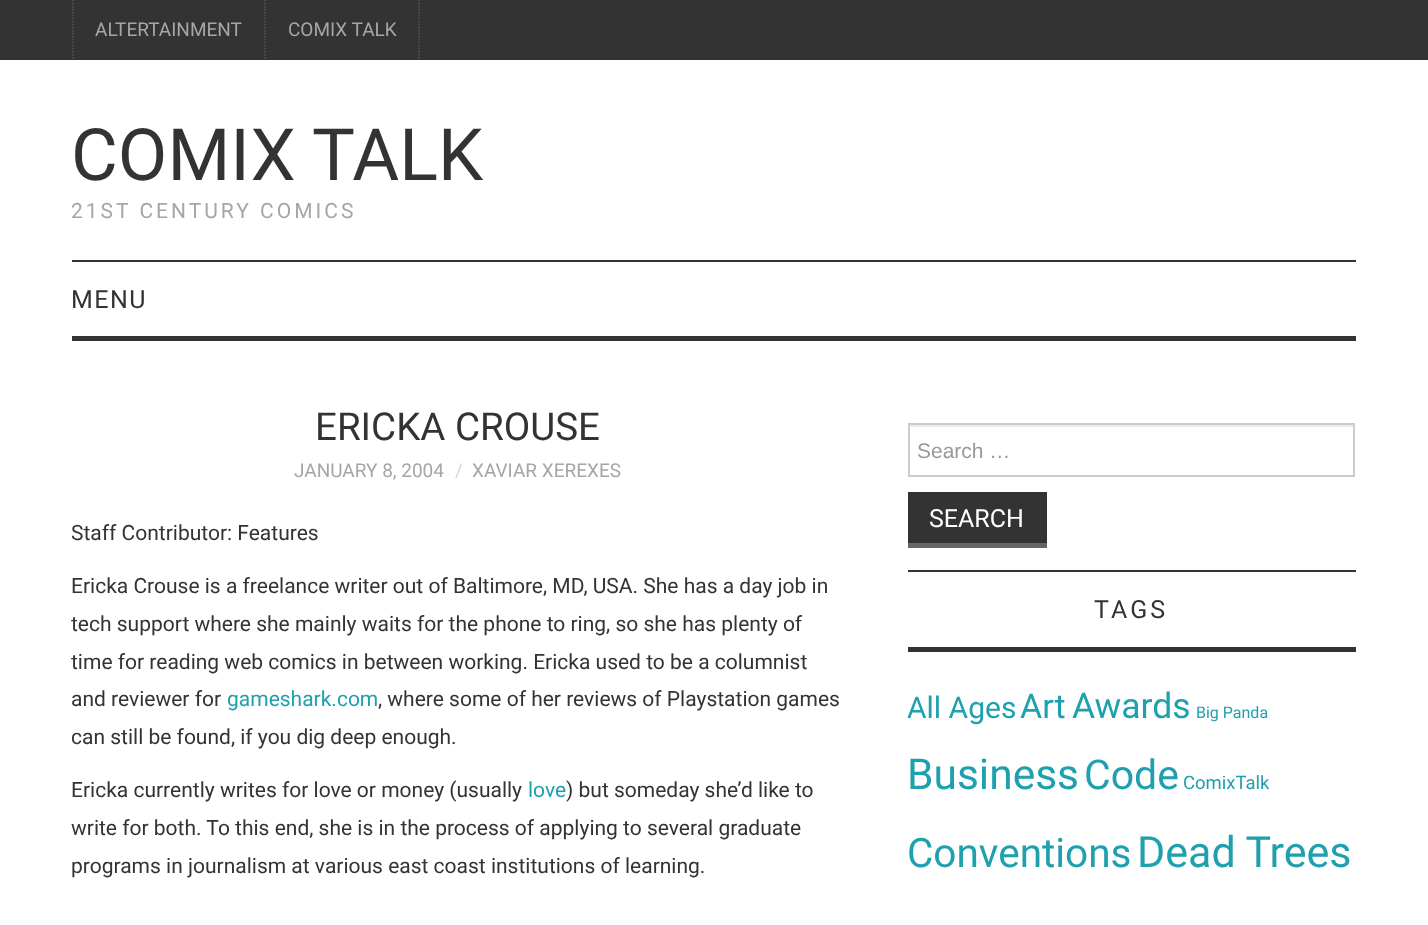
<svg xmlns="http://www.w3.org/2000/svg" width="1428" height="925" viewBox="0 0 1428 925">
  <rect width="100%" height="100%" fill="#fff"/>
  <path d="M0 0h1428v60H0z" fill="#333"/>
  <path d="M73 0V60" fill="none" stroke="#565656" stroke-width="1.5" stroke-dasharray="1.5 1.5"/>
  <path d="M265 0V60" fill="none" stroke="#565656" stroke-width="1.5" stroke-dasharray="1.5 1.5"/>
  <path d="M419 0V60" fill="none" stroke="#565656" stroke-width="1.5" stroke-dasharray="1.5 1.5"/>
  <path d="M72 260h1284v2H72z" fill="#333"/>
  <path d="M72 336h1284v5H72z" fill="#333"/>
  <path d="M908 570h448v2H908z" fill="#333"/>
  <path d="M909 425h444v2H909z" fill="#ececec"/>
  <path d="M909 424h445v52H909z" fill="none" stroke="#ccc" stroke-width="2"/>
  <path d="M908 492h139v51H908z" fill="#333"/>
  <path d="M908 543h139v5H908z" fill="#666"/>
  <path d="M908 647h448v5H908z" fill="#333"/>
  <g font-family="Roboto" font-size="19" fill="#a6a6a6">
    <text x="95" y="36">ALTERTAINMENT</text>
    <text x="288" y="36">COMIX TALK</text>
  </g>
  <text x="71" y="180" font-family="Roboto" font-size="72" fill="#333">COMIX TALK</text>
  <text x="71" y="218" font-family="Roboto" font-size="21" letter-spacing="3" fill="#a6a6a6">21ST CENTURY COMICS</text>
  <text x="71" y="308" font-family="Roboto" font-size="25" letter-spacing="1.5" fill="#333">MENU</text>
  <text x="315" y="440" font-family="Roboto" font-size="38.5" fill="#333">ERICKA CROUSE</text>
  <text x="294" y="477" font-family="Roboto" font-size="19" fill="#a6a6a6">JANUARY 8, 2004</text>
  <text x="455" y="477" font-family="Roboto" font-size="19" fill="#d6d6d6">/</text>
  <text x="472" y="477" font-family="Roboto" font-size="19" fill="#a6a6a6">XAVIAR XEREXES</text>
  <g font-family="Roboto" font-size="21" fill="#333">
    <text x="71" y="540">Staff Contributor: Features</text>
    <text x="71" y="593">Ericka Crouse is a freelance writer out of Baltimore, MD, USA. She has a day job in</text>
    <text x="71" y="631">tech support where she mainly waits for the phone to ring, so she has plenty of</text>
    <text x="71" y="669">time for reading web comics in between working. Ericka used to be a columnist</text>
    <text x="71" y="706">and reviewer for</text>
  </g>
  <text x="227" y="706" font-family="Roboto" font-size="21" fill="#1fa0ae">gameshark.com</text>
  <g font-family="Roboto" font-size="21" fill="#333">
    <text x="378" y="706">, where some of her reviews of Playstation games</text>
    <text x="71" y="744">can still be found, if you dig deep enough.</text>
    <text x="71" y="797">Ericka currently writes for love or money (usually</text>
  </g>
  <text x="528" y="797" font-family="Roboto" font-size="21" fill="#1fa0ae">love</text>
  <g font-family="Roboto" font-size="21" fill="#333">
    <text x="566" y="797">) but someday she’d like to</text>
    <text x="71" y="835">write for both. To this end, she is in the process of applying to several graduate</text>
    <text x="71" y="873">programs in journalism at various east coast institutions of learning.</text>
  </g>
  <text x="917" y="458" font-family="Liberation Sans" font-size="21" fill="#999">Search …</text>
  <text x="929" y="527" font-family="Roboto" font-size="25" fill="#fff">SEARCH</text>
  <text x="1094" y="618" font-family="Roboto" font-size="25" letter-spacing="3" fill="#333">TAGS</text>
  <text x="907" y="718" font-family="Roboto" font-size="30" fill="#1fa0ae">All Ages</text>
  <text x="1020" y="718" font-family="Roboto" font-size="34" fill="#1fa0ae">Art</text>
  <text x="1072" y="718" font-family="Roboto" font-size="35.5" fill="#1fa0ae">Awards</text>
  <text x="1196" y="718" font-family="Roboto" font-size="16" fill="#1fa0ae">Big Panda</text>
  <text x="907" y="789" font-family="Roboto" font-size="42.5" fill="#1fa0ae">Business</text>
  <text x="1084" y="789" font-family="Roboto" font-size="41" fill="#1fa0ae">Code</text>
  <text x="1183" y="789" font-family="Roboto" font-size="18.5" fill="#1fa0ae">ComixTalk</text>
  <text x="907" y="867" font-family="Roboto" font-size="40.5" fill="#1fa0ae">Conventions</text>
  <text x="1137" y="867" font-family="Roboto" font-size="43" fill="#1fa0ae">Dead Trees</text>
</svg>
